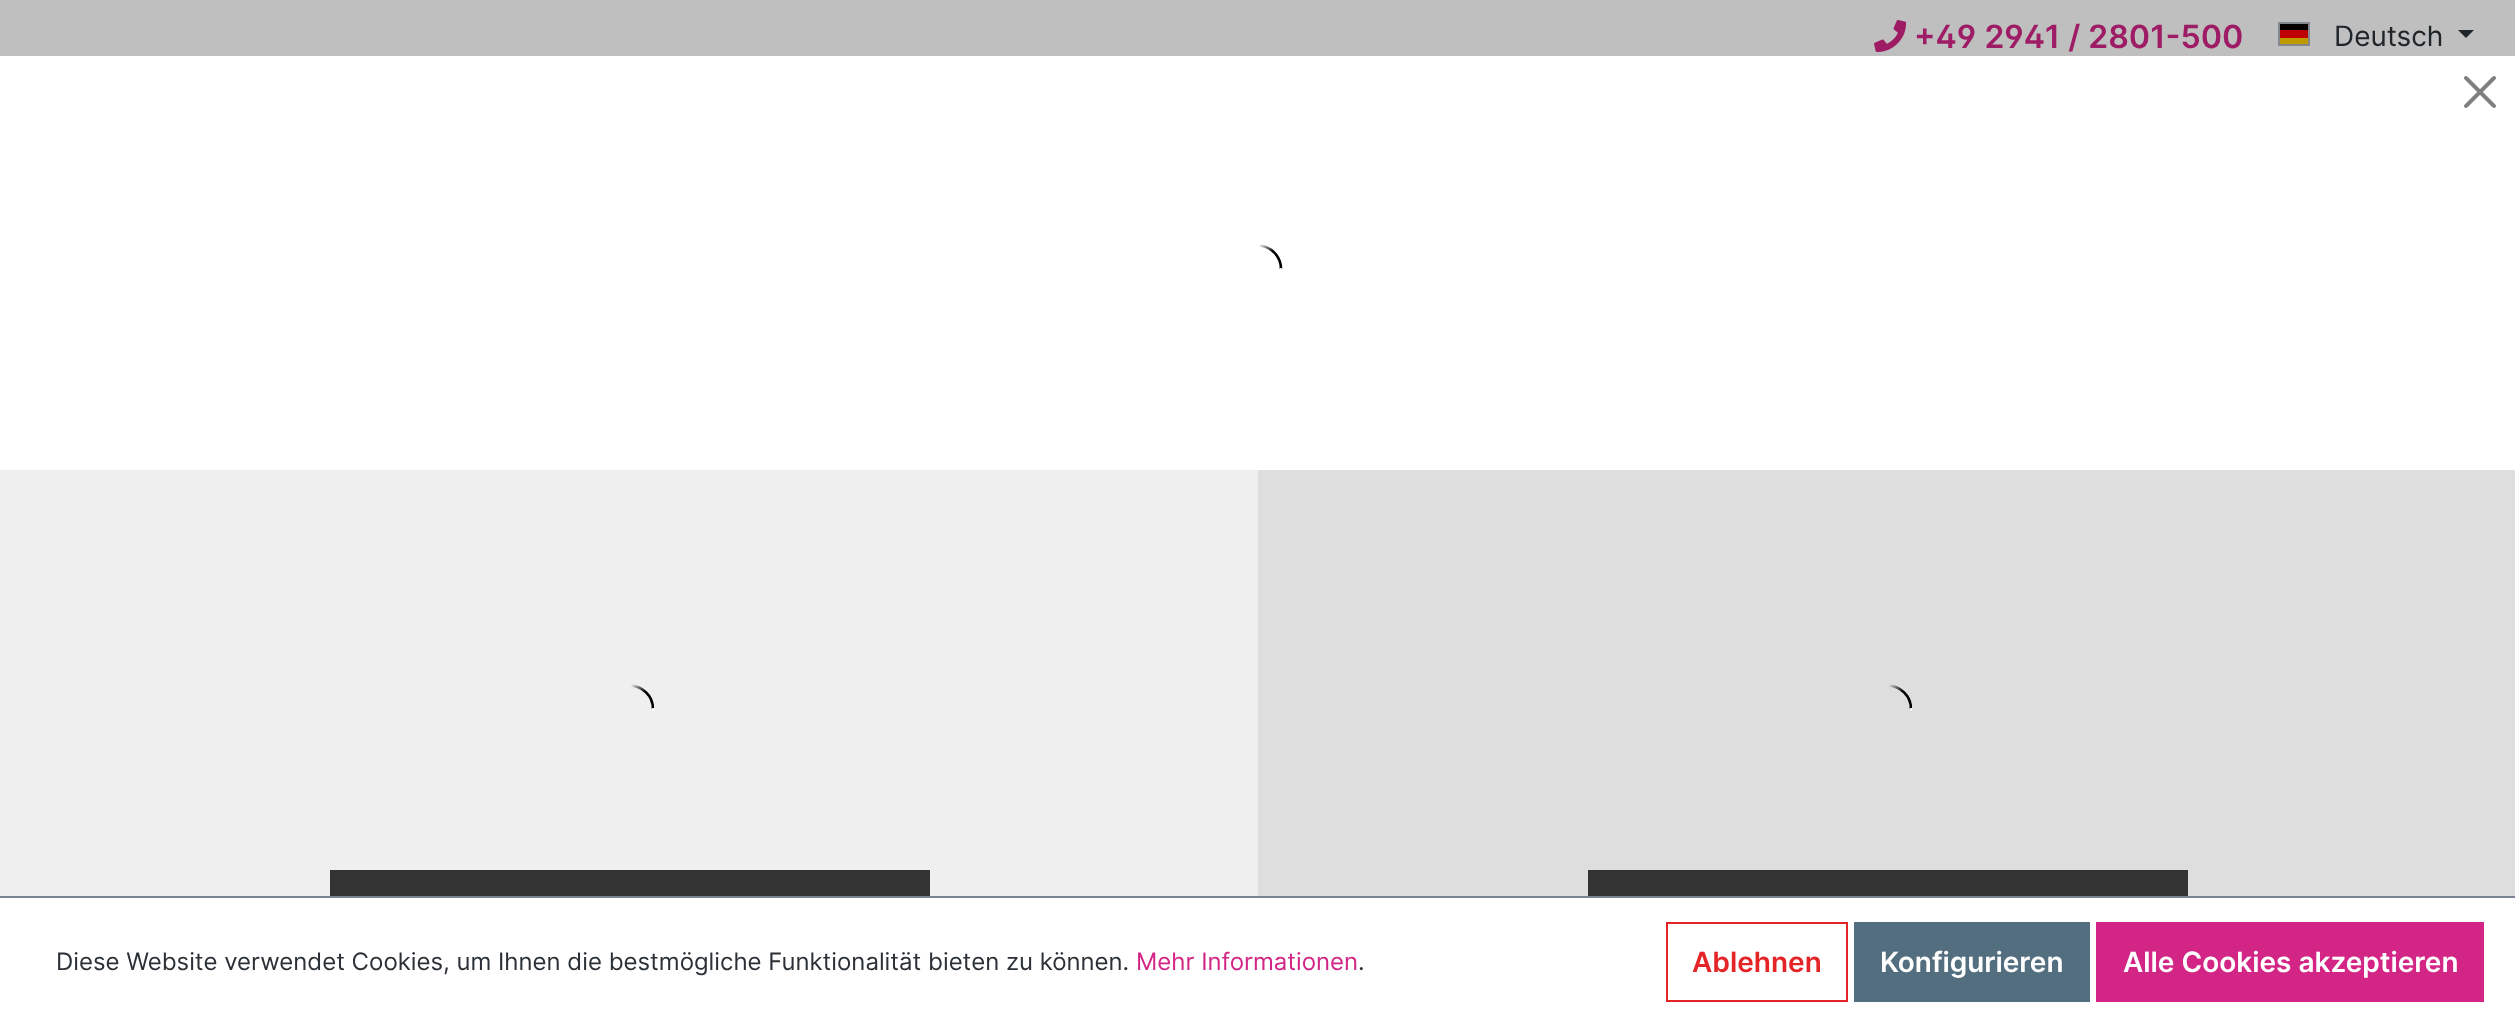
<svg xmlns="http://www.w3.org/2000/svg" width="2515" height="1026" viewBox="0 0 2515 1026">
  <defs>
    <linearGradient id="g1" gradientUnits="userSpaceOnUse" x1="1259" y1="245" x2="1273" y2="251"><stop offset="0" stop-color="#fff"/><stop offset="0.63" stop-color="#5e5e5e"/><stop offset="1" stop-color="#000"/></linearGradient>
    <clipPath id="clip1"><path d="M604 684h50v52H604z"/></clipPath>
    <linearGradient id="g2" gradientUnits="userSpaceOnUse" x1="631" y1="685" x2="645" y2="691"><stop offset="0" stop-color="#efefef"/><stop offset="0.63" stop-color="#585858"/><stop offset="1" stop-color="#000"/></linearGradient>
    <clipPath id="clip2"><path d="M1862 684h50v52H1862z"/></clipPath>
    <linearGradient id="g3" gradientUnits="userSpaceOnUse" x1="1889" y1="685" x2="1903" y2="691"><stop offset="0" stop-color="#dedede"/><stop offset="0.63" stop-color="#525252"/><stop offset="1" stop-color="#000"/></linearGradient>
  </defs>
  <rect width="100%" height="100%" fill="#bfbfbf"/>
  <image x="1874" y="20" width="33" height="32" href="img/1.png"/>
  <path d="M2280 24h28v6H2280z" fill="#000"/>
  <path d="M2280 30h28v8H2280z" fill="#bf0000"/>
  <path d="M2280 38h28v6H2280z" fill="#bf9900"/>
  <path d="M2279 23h30v22H2279z" fill="none" stroke="#82888e" stroke-width="2"/>
  <path d="M2458 30H2474L2466 38Z" fill="#202529"/>
  <path d="M0 56h2515v414H0z" fill="#fff"/>
  <image x="2464" y="76" width="32" height="32" href="img/2.png"/>
  <path d="M1281 269C1281 256 1270.5 245.5 1257 245.5" fill="none" stroke="url(#g1)" stroke-width="2.6"/>
  <circle cx="1281" cy="269.2" r="1.3" fill="#fff"/>
  <path d="M0 470h1258v426H0z" fill="#efefef"/>
  <g clip-path="url(#clip1)">
    <path d="M653 709C653 696 642.5 685.5 629 685.5" fill="none" stroke="url(#g2)" stroke-width="2.6"/>
  </g>
  <circle cx="653" cy="709.2" r="1.3" fill="#fff"/>
  <image x="330" y="870" width="600" height="26" href="img/3.png"/>
  <path d="M1258 470h1257v426H1258z" fill="#dedede"/>
  <g clip-path="url(#clip2)">
    <path d="M1911 709C1911 696 1900.5 685.5 1887 685.5" fill="none" stroke="url(#g3)" stroke-width="2.6"/>
  </g>
  <circle cx="1911" cy="709.2" r="1.3" fill="#fff"/>
  <image x="1588" y="870" width="600" height="26" href="img/3.png"/>
  <path d="M0 898h2515v128H0z" fill="#fff"/>
  <path d="M0 896h2515v2H0z" fill="#798490"/>
  <path d="M1667 923h180v78H1667z" fill="none" stroke="#e52427" stroke-width="2"/>
  <path d="M1854 922h236v80H1854z" fill="#526e7f"/>
  <path d="M2096 922h388v80H2096z" fill="#d22586"/>
  <text x="1914" y="48" font-family="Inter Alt" font-size="32" font-weight="600" fill="#9e1c65">+49 2941 / 2801-500</text>
  <text x="2334" y="46" font-family="Inter" font-size="28" fill="#202529">Deutsch</text>
  <text x="56" y="970" font-family="Inter" font-size="24" fill="#2b3136">Diese Website verwendet Cookies, um Ihnen die bestmögliche Funktionalität bieten zu können.</text>
  <text x="1136" y="970" font-family="Inter" font-size="24" fill="#d22586">Mehr Informationen</text>
  <text x="1358" y="970" font-family="Inter" font-size="24" fill="#2b3136">.</text>
  <text x="1692" y="972" font-family="Inter" font-size="28" font-weight="600" fill="#e52427">Ablehnen</text>
  <g font-family="Inter" font-size="28" font-weight="600" fill="#fff">
    <text x="1880" y="972">Konfigurieren</text>
    <text x="2123" y="972">Alle Cookies akzeptieren</text>
  </g>
</svg>
